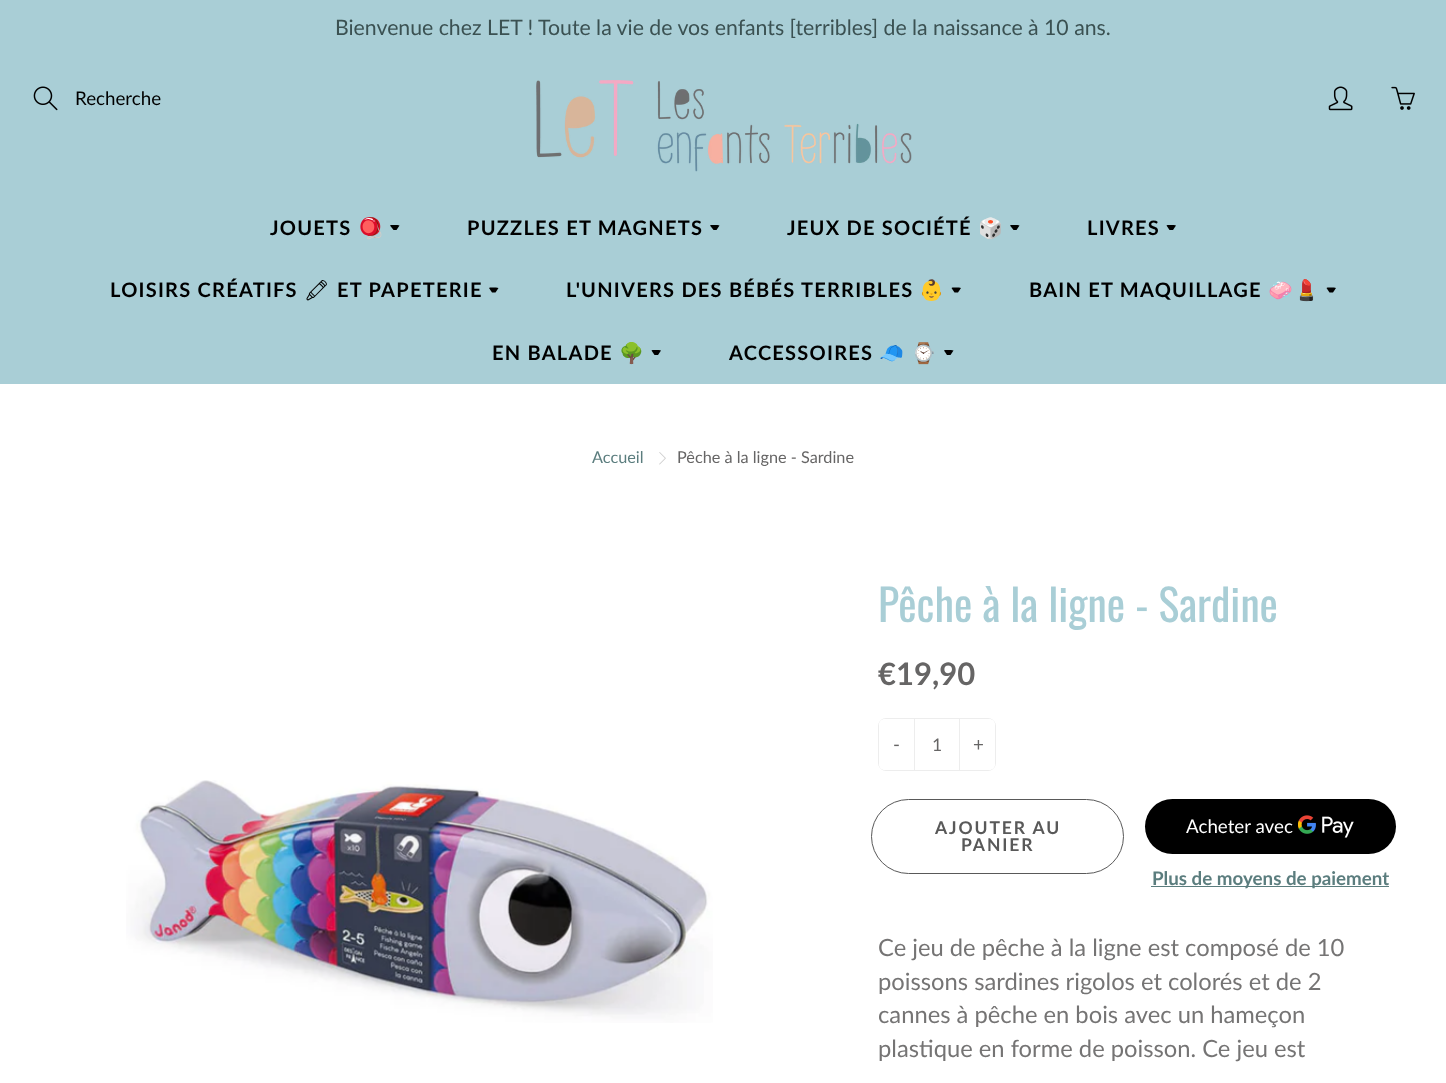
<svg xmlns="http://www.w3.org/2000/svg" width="1446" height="1083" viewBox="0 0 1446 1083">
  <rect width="100%" height="100%" fill="#fff"/>
  <path d="M0 0h1446v384H0z" fill="#a9ced6"/>
  <image x="33" y="86" width="25" height="25" href="img/1.png"/>
  <image x="536" y="80" width="376" height="92" href="img/2.png"/>
  <image x="1328" y="86" width="25" height="25" href="img/3.png"/>
  <image x="1391" y="86" width="24" height="24" href="img/4.png"/>
  <path d="M391 225L390 225.5L393.5 230H396.5L399.5 225.5L397.5 225Z" fill="#000"/>
  <path d="M711 225L710 225.5L713.5 230H716.5L719.5 225.5L717.5 225Z" fill="#000"/>
  <path d="M1011 225L1010 225.5L1013.5 230H1016.5L1019.5 225.5L1017.5 225Z" fill="#000"/>
  <path d="M1167.5 225L1166.5 225.5L1169.5 230H1173L1176 225.5L1174 225Z" fill="#000"/>
  <path d="M490 287.5L489 288L492 292.5H495.5L498.5 288L496 287.5Z" fill="#000"/>
  <path d="M952.5 287.5L951.5 288L954.5 292.5H958L961 288L959 287.5Z" fill="#000"/>
  <path d="M1327.5 287.5L1326.5 288L1329.5 292.5H1333L1336 288L1334 287.5Z" fill="#000"/>
  <path d="M652.5 350L651.5 350.5L654.5 355H658L661 350.5L659 350Z" fill="#000"/>
  <path d="M945 350L944 350.5L947 355H950.5L953.5 350.5L951 350Z" fill="#000"/>
  <image x="659" y="452" width="7" height="13" href="img/5.png"/>
  <image x="126" y="780" width="587" height="243" href="img/6.png"/>
  <rect x="878.5" y="718.5" width="117" height="52" rx="7.5" fill="none" stroke="#ededed"/>
  <path d="M885 719H914V770H885C881.5 770 879 767.5 879 764V725C879 721.5 881.5 719 885 719Z" fill="#fff"/>
  <path d="M959 719h1v51H959z" fill="#ededed"/>
  <path d="M914 719h1v51H914z" fill="#ededed"/>
  <path d="M960 719H989C992.5 719 995 721.5 995 725V764C995 767.5 992.5 770 989 770H960Z" fill="#fff"/>
  <rect x="871.5" y="799.5" width="252" height="74" rx="37" fill="none" stroke="#595959"/>
  <rect x="1145" y="799" width="251" height="55" rx="27.5" fill="#000"/>
  <image x="1298" y="815" width="56" height="23" href="img/7.png"/>
  <path d="M1151 886h238v1H1151z" fill="#5b7d7e"/>
  <text x="335" y="35" font-family="Lato" font-size="21.25" fill="#3b5152">Bienvenue chez LET ! Toute la vie de vos enfants [terribles] de la naissance à 10 ans.</text>
  <text x="75" y="105" font-family="Lato" font-size="18.75" fill="#000">Recherche</text>
  <text x="270" y="235" font-family="Lato" font-size="20" font-weight="bold" letter-spacing="1.25" fill="#000">JOUETS</text>
  <text x="358" y="235" font-family="Noto Color Emoji" font-size="20" font-weight="bold" letter-spacing="1.25" fill="#000">🪀</text>
  <g font-family="Lato" font-size="20" font-weight="bold" letter-spacing="1.25" fill="#000">
    <text x="467" y="235">PUZZLES ET MAGNETS</text>
    <text x="787" y="235">JEUX DE SOCIÉTÉ</text>
  </g>
  <text x="978" y="235" font-family="Noto Color Emoji" font-size="20" font-weight="bold" letter-spacing="1.25" fill="#000">🎲</text>
  <g font-family="Lato" font-size="20" font-weight="bold" letter-spacing="1.25" fill="#000">
    <text x="1087" y="235">LIVRES</text>
    <text x="110" y="297">LOISIRS CRÉATIFS</text>
  </g>
  <text x="304" y="297" font-family="Noto Emoji" font-size="20" font-weight="600" letter-spacing="1.25" fill="#000">🖍</text>
  <g font-family="Lato" font-size="20" font-weight="bold" letter-spacing="1.25" fill="#000">
    <text x="337" y="297">ET PAPETERIE</text>
    <text x="566" y="297">L'UNIVERS DES BÉBÉS TERRIBLES</text>
  </g>
  <text x="919" y="297" font-family="Noto Color Emoji" font-size="20" font-weight="bold" letter-spacing="1.25" fill="#000">👶</text>
  <text x="1029" y="297" font-family="Lato" font-size="20" font-weight="bold" letter-spacing="1.25" fill="#000">BAIN ET MAQUILLAGE</text>
  <text x="1268" y="297" font-family="Noto Color Emoji" font-size="20" font-weight="bold" letter-spacing="1.25" fill="#000">🧼💄</text>
  <text x="492" y="360" font-family="Lato" font-size="20" font-weight="bold" letter-spacing="1.25" fill="#000">EN BALADE</text>
  <text x="619" y="360" font-family="Noto Color Emoji" font-size="20" font-weight="bold" letter-spacing="1.25" fill="#000">🌳</text>
  <text x="729" y="360" font-family="Lato" font-size="20" font-weight="bold" letter-spacing="1.25" fill="#000">ACCESSOIRES</text>
  <g font-family="Noto Color Emoji" font-size="20" font-weight="bold" letter-spacing="1.25" fill="#000">
    <text x="879" y="360">🧢</text>
    <text x="911" y="360">⌚️</text>
  </g>
  <text x="592" y="463" font-family="Lato" font-size="16.25" fill="#5b7d7e">Accueil</text>
  <text x="677" y="463" font-family="Lato" font-size="16.25" fill="#666565">Pêche à la ligne - Sardine</text>
  <text x="878" y="622" font-family="Oswald" font-size="43.75" fill="#a9ced6">Pêche à la ligne - Sardine</text>
  <text x="878" y="685" font-family="Lato" font-size="31" font-weight="bold" fill="#666565">€19,90</text>
  <text x="893" y="751" font-family="Lato" font-size="18.75" fill="#666565">-</text>
  <text x="932" y="751" font-family="Lato" font-size="17.5" fill="#666565">1</text>
  <text x="973" y="751" font-family="Lato" font-size="18.75" fill="#666565">+</text>
  <g font-family="Lato" font-size="17.5" font-weight="bold" letter-spacing="1.9" fill="#595959">
    <text x="935" y="834">AJOUTER AU</text>
    <text x="961" y="851">PANIER</text>
  </g>
  <text x="1186" y="833" font-family="Lato" font-size="18.75" fill="#fff">Acheter avec</text>
  <text x="1152" y="885" font-family="Lato" font-size="18.75" font-weight="bold" fill="#5b7d7e">Plus de moyens de paiement</text>
  <g font-family="Lato" font-size="23.75" fill="#757474">
    <text x="878" y="956">Ce jeu de pêche à la ligne est composé de 10</text>
    <text x="878" y="990">poissons sardines rigolos et colorés et de 2</text>
    <text x="878" y="1023">cannes à pêche en bois avec un hameçon</text>
    <text x="878" y="1057">plastique en forme de poisson. Ce jeu est</text>
  </g>
</svg>
